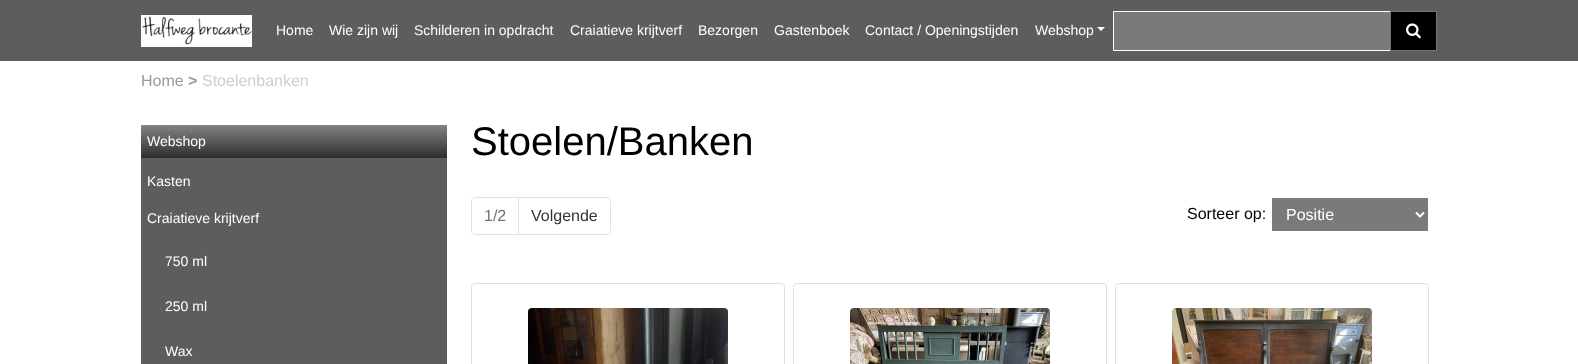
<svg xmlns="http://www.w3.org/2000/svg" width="1578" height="364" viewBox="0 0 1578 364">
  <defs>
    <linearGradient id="g1" gradientUnits="userSpaceOnUse" x1="294" y1="125" x2="294" y2="158"><stop offset="0" stop-color="#848484"/><stop offset="1" stop-color="#302c2c"/></linearGradient>
  </defs>
  <rect width="100%" height="100%" fill="#fff"/>
  <path d="M0 0h1578v61H0z" fill="#5d5d5d"/>
  <image x="141" y="15" width="111" height="32" href="img/1.png"/>
  <path d="M1097 27H1105L1101 31Z" fill="#fff"/>
  <path d="M1113.5 11.5h277v39H1113.5z" fill="#7a7a7a" stroke="#fff"/>
  <path d="M1390.5 11.5h46v39H1390.5z" fill="#000" stroke="#74747f"/>
  <image x="1406" y="23" width="15" height="16" href="img/2.png"/>
  <path d="M141 158h306v206H141z" fill="#5d5d5d"/>
  <path d="M141 125h306v33H141z" fill="url(#g1)"/>
  <path d="M475 197.5H518.5V234.5H475C473 234.5 471.5 233 471.5 231V201C471.5 199 473 197.5 475 197.5Z" fill="none" stroke="#dee2e6"/>
  <path d="M518.5 197.5H607C609 197.5 610.5 199 610.5 201V231C610.5 233 609 234.5 607 234.5H518.5Z" fill="#fff" stroke="#dee2e6"/>
  <path d="M1272 198h156v33H1272z" fill="#7a7a7a"/>
  <path d="M1416 212.5L1420 216.5L1424 212.5" fill="none" stroke="#fffafa" stroke-width="2"/>
  <rect x="471.5" y="283.5" width="313" height="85" rx="3.5" fill="none" stroke="#dfdfdf"/>
  <image x="528" y="308" width="200" height="56" href="img/3.png"/>
  <rect x="793.5" y="283.5" width="313" height="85" rx="3.5" fill="none" stroke="#dfdfdf"/>
  <image x="850" y="308" width="200" height="56" href="img/4.png"/>
  <rect x="1115.5" y="283.5" width="313" height="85" rx="3.5" fill="none" stroke="#dfdfdf"/>
  <image x="1172" y="308" width="200" height="56" href="img/5.png"/>
  <g font-family="Liberation Sans" font-size="14" fill="#fff">
    <text x="276" y="35">Home</text>
    <text x="329" y="35">Wie zijn wij</text>
    <text x="414" y="35">Schilderen in opdracht</text>
    <text x="570" y="35">Craiatieve krijtverf</text>
    <text x="698" y="35">Bezorgen</text>
    <text x="774" y="35">Gastenboek</text>
    <text x="865" y="35">Contact / Openingstijden</text>
    <text x="1035" y="35">Webshop</text>
  </g>
  <text x="141" y="86" font-family="Liberation Sans" font-size="16" fill="#9b9999">Home</text>
  <text x="188" y="86" font-family="Liberation Sans" font-size="16" font-weight="bold" fill="#9b9999">&gt;</text>
  <text x="202" y="86" font-family="Liberation Sans" font-size="16" fill="#cecece">Stoelenbanken</text>
  <g font-family="Liberation Sans" font-size="14" fill="#fff">
    <text x="147" y="146">Webshop</text>
    <text x="147" y="186">Kasten</text>
    <text x="147" y="223">Craiatieve krijtverf</text>
    <text x="165" y="266">750 ml</text>
    <text x="165" y="311">250 ml</text>
    <text x="165" y="356">Wax</text>
  </g>
  <text x="471" y="155" font-family="Liberation Sans" font-size="40" fill="#000">Stoelen/Banken</text>
  <text x="484" y="221" font-family="Liberation Sans" font-size="16" fill="#6c757d">1/2</text>
  <text x="531" y="221" font-family="Liberation Sans" font-size="16" fill="#333">Volgende</text>
  <text x="1187" y="219" font-family="Liberation Sans" font-size="16" fill="#000">Sorteer op:</text>
  <text x="1286" y="220" font-family="Liberation Sans" font-size="16" fill="#fff">Positie</text>
</svg>
